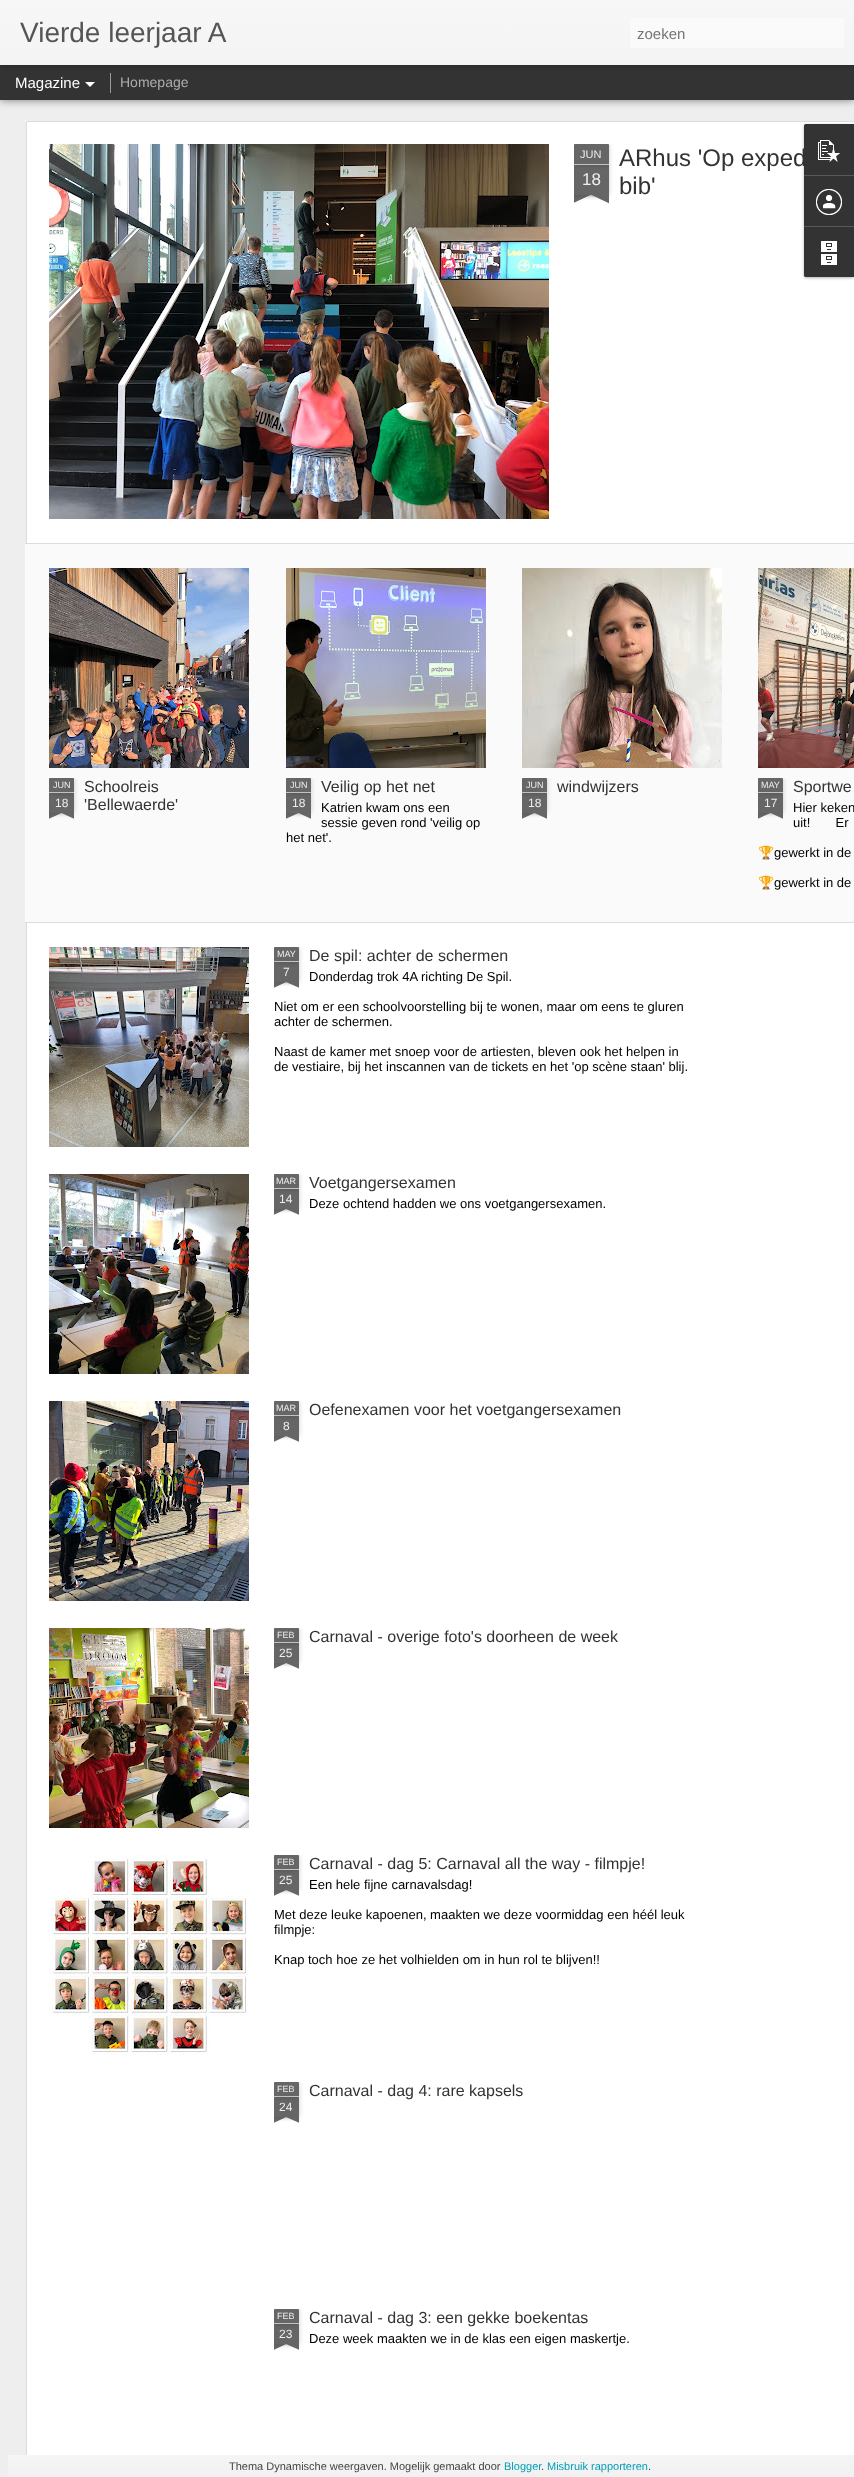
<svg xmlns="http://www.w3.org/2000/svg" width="854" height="2477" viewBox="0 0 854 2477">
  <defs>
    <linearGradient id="g1" gradientUnits="userSpaceOnUse" x1="0" y1="0" x2="0" y2="65"><stop offset="0" stop-color="#f7f7f7"/><stop offset="1" stop-color="#f4f4f4"/></linearGradient>
    <clipPath id="clip1"><path d="M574 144h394v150H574z"/></clipPath>
    <clipPath id="clip2"><path d="M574 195h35v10H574z"/></clipPath>
    <clipPath id="clip3"><path d="M574 195h35v10H574z"/></clipPath>
    <clipPath id="clip4"><path d="M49 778h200v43H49z"/></clipPath>
    <clipPath id="clip5"><path d="M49 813h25v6H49z"/></clipPath>
    <clipPath id="clip6"><path d="M49 813h25v6H49z"/></clipPath>
    <clipPath id="clip7"><path d="M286 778h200v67H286z"/></clipPath>
    <clipPath id="clip8"><path d="M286 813h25v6H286z"/></clipPath>
    <clipPath id="clip9"><path d="M286 813h25v6H286z"/></clipPath>
    <clipPath id="clip10"><path d="M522 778h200v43H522z"/></clipPath>
    <clipPath id="clip11"><path d="M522 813h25v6H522z"/></clipPath>
    <clipPath id="clip12"><path d="M522 813h25v6H522z"/></clipPath>
    <clipPath id="clip13"><path d="M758 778h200v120H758z"/></clipPath>
    <clipPath id="clip14"><path d="M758 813h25v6H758z"/></clipPath>
    <clipPath id="clip15"><path d="M758 813h25v6H758z"/></clipPath>
    <clipPath id="clip16"><path d="M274 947h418v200H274z"/></clipPath>
    <clipPath id="clip17"><path d="M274 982h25v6H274z"/></clipPath>
    <clipPath id="clip18"><path d="M274 982h25v6H274z"/></clipPath>
    <clipPath id="clip19"><path d="M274 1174h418v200H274z"/></clipPath>
    <clipPath id="clip20"><path d="M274 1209h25v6H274z"/></clipPath>
    <clipPath id="clip21"><path d="M274 1209h25v6H274z"/></clipPath>
    <clipPath id="clip22"><path d="M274 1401h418v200H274z"/></clipPath>
    <clipPath id="clip23"><path d="M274 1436h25v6H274z"/></clipPath>
    <clipPath id="clip24"><path d="M274 1436h25v6H274z"/></clipPath>
    <clipPath id="clip25"><path d="M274 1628h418v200H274z"/></clipPath>
    <clipPath id="clip26"><path d="M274 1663h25v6H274z"/></clipPath>
    <clipPath id="clip27"><path d="M274 1663h25v6H274z"/></clipPath>
    <clipPath id="clip28"><path d="M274 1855h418v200H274z"/></clipPath>
    <clipPath id="clip29"><path d="M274 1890h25v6H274z"/></clipPath>
    <clipPath id="clip30"><path d="M274 1890h25v6H274z"/></clipPath>
    <clipPath id="clip31"><path d="M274 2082h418v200H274z"/></clipPath>
    <clipPath id="clip32"><path d="M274 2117h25v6H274z"/></clipPath>
    <clipPath id="clip33"><path d="M274 2117h25v6H274z"/></clipPath>
    <clipPath id="clip34"><path d="M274 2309h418v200H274z"/></clipPath>
    <clipPath id="clip35"><path d="M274 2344h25v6H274z"/></clipPath>
    <clipPath id="clip36"><path d="M274 2344h25v6H274z"/></clipPath>
    <linearGradient id="g2" gradientUnits="userSpaceOnUse" x1="440" y1="2455" x2="440" y2="2477"><stop offset="0" stop-color="#f5f5f5"/><stop offset="1" stop-color="#f1f1f1"/></linearGradient>
  </defs>
  <rect width="100%" height="100%" fill="#eee"/>
  <path d="M0 65h854v35H0z" fill="#00000080" filter="blur(4px)"/>
  <path d="M0 65h854v35H0z" fill="#333"/>
  <path d="M110 73h1v20H110z" fill="#999"/>
  <path d="M0 0h854v65H0z" fill="#0000004d" filter="blur(2.5px)"/>
  <path d="M0 0h854v65H0z" fill="url(#g1)"/>
  <rect x="630" y="18" width="214" height="30" rx="3" fill="#fafafa"/>
  <path d="M85 82H95L90 87Z" fill="#fff"/>
  <path d="M25 120h829v2335H25z" fill="#fff"/>
  <image x="25" y="120" width="829" height="2335" href="img/4.png"/>
  <rect x="804" y="125" width="50" height="153" rx="2" fill="#0000004d" filter="blur(1.5px)"/>
  <path d="M806 124H854V277H806C805 277 804 276 804 275V126C804 125 805 124 806 124Z" fill="#333"/>
  <path d="M806 124H854V175H804V126C804 125 805 124 806 124Z" fill="#333"/>
  <image x="818" y="140" width="22" height="22" href="img/1.png"/>
  <path d="M804 175h50v1H804z" fill="#585858"/>
  <image x="816" y="189" width="26" height="26" href="img/2.png"/>
  <path d="M804 226H854V277H806C805 277 804 276 804 275Z" fill="#333"/>
  <path d="M804 226h50v1H804z" fill="#585858"/>
  <image x="821" y="241" width="16" height="24" href="img/3.png"/>
  <image x="49" y="144" width="500" height="375" href="img/5.png"/>
  <g clip-path="url(#clip1)">
    <path d="M574 165h35v30H574z" fill="#00000033" filter="blur(2.5px)"/>
  </g>
  <path d="M574 165h35v30H574z" fill="#666"/>
  <g clip-path="url(#clip1)">
    <rect x="574" y="144" width="35" height="21" rx="1" fill="#00000033" filter="blur(2.5px)"/>
  </g>
  <path d="M575 144H608C608.5 144 609 144.5 609 145V165H574V145C574 144.5 574.5 144 575 144Z" fill="#666"/>
  <path d="M574 164h35v1H574z" fill="#c2c2c2"/>
  <g clip-path="url(#clip2)">
    <path d="M565 185h50v10H565z" fill="#00000033" filter="blur(2.5px)"/>
  </g>
  <g clip-path="url(#clip3)">
    <path d="M565 196L610 175L614 184L569 205Z" fill="#666"/>
  </g>
  <g clip-path="url(#clip2)">
    <path d="M568 185h50v10H568z" fill="#00000033" filter="blur(2.5px)"/>
  </g>
  <g clip-path="url(#clip3)">
    <path d="M572 175L617 196L613 205L568 184Z" fill="#666"/>
  </g>
  <path d="M25 544h829v378H25z" fill="#fafafa"/>
  <path d="M25 543h829v1H25z" fill="#ddd"/>
  <path d="M25 922h829v1H25z" fill="#ddd"/>
  <image x="49" y="568" width="200" height="200" href="img/6.png"/>
  <g clip-path="url(#clip4)">
    <path d="M49 793h25v20H49z" fill="#00000033" filter="blur(2.5px)"/>
  </g>
  <path d="M49 793h25v20H49z" fill="#666"/>
  <g clip-path="url(#clip4)">
    <rect x="49" y="778" width="25" height="15" rx="1" fill="#00000033" filter="blur(2.5px)"/>
  </g>
  <path d="M50 778H73C73.5 778 74 778.5 74 779V793H49V779C49 778.5 49.5 778 50 778Z" fill="#666"/>
  <path d="M49 792h25v1H49z" fill="#c2c2c2"/>
  <g clip-path="url(#clip5)">
    <path d="M43 806h40v6H43z" fill="#00000033" filter="blur(2.5px)"/>
  </g>
  <g clip-path="url(#clip6)">
    <path d="M43.5 814.5L80 798L82.5 803.5L46 820Z" fill="#666"/>
  </g>
  <g clip-path="url(#clip5)">
    <path d="M40 806h40v6H40z" fill="#00000033" filter="blur(2.5px)"/>
  </g>
  <g clip-path="url(#clip6)">
    <path d="M43 798L79.5 814.5L77 820L40.5 803.5Z" fill="#666"/>
  </g>
  <image x="286" y="568" width="200" height="200" href="img/7.png"/>
  <g clip-path="url(#clip7)">
    <path d="M286 793h25v20H286z" fill="#00000033" filter="blur(2.5px)"/>
  </g>
  <path d="M286 793h25v20H286z" fill="#666"/>
  <g clip-path="url(#clip7)">
    <rect x="286" y="778" width="25" height="15" rx="1" fill="#00000033" filter="blur(2.5px)"/>
  </g>
  <path d="M287 778H310C310.5 778 311 778.5 311 779V793H286V779C286 778.5 286.5 778 287 778Z" fill="#666"/>
  <path d="M286 792h25v1H286z" fill="#c2c2c2"/>
  <g clip-path="url(#clip8)">
    <path d="M280 806h40v6H280z" fill="#00000033" filter="blur(2.5px)"/>
  </g>
  <g clip-path="url(#clip9)">
    <path d="M280.5 814.5L317 798L319.5 803.5L283 820Z" fill="#666"/>
  </g>
  <g clip-path="url(#clip8)">
    <path d="M277 806h40v6H277z" fill="#00000033" filter="blur(2.5px)"/>
  </g>
  <g clip-path="url(#clip9)">
    <path d="M280 798L316.5 814.5L314 820L277.5 803.5Z" fill="#666"/>
  </g>
  <image x="522" y="568" width="200" height="200" href="img/8.png"/>
  <g clip-path="url(#clip10)">
    <path d="M522 793h25v20H522z" fill="#00000033" filter="blur(2.5px)"/>
  </g>
  <path d="M522 793h25v20H522z" fill="#666"/>
  <g clip-path="url(#clip10)">
    <rect x="522" y="778" width="25" height="15" rx="1" fill="#00000033" filter="blur(2.5px)"/>
  </g>
  <path d="M523 778H546C546.5 778 547 778.5 547 779V793H522V779C522 778.5 522.5 778 523 778Z" fill="#666"/>
  <path d="M522 792h25v1H522z" fill="#c2c2c2"/>
  <g clip-path="url(#clip11)">
    <path d="M516 806h40v6H516z" fill="#00000033" filter="blur(2.5px)"/>
  </g>
  <g clip-path="url(#clip12)">
    <path d="M516.5 814.5L553 798L555.5 803.5L519 820Z" fill="#666"/>
  </g>
  <g clip-path="url(#clip11)">
    <path d="M513 806h40v6H513z" fill="#00000033" filter="blur(2.5px)"/>
  </g>
  <g clip-path="url(#clip12)">
    <path d="M516 798L552.5 814.5L550 820L513.5 803.5Z" fill="#666"/>
  </g>
  <image x="758" y="568" width="96" height="200" href="img/9.png"/>
  <g clip-path="url(#clip13)">
    <path d="M758 793h25v20H758z" fill="#00000033" filter="blur(2.5px)"/>
  </g>
  <path d="M758 793h25v20H758z" fill="#666"/>
  <g clip-path="url(#clip13)">
    <rect x="758" y="778" width="25" height="15" rx="1" fill="#00000033" filter="blur(2.5px)"/>
  </g>
  <path d="M759 778H782C782.5 778 783 778.5 783 779V793H758V779C758 778.5 758.5 778 759 778Z" fill="#666"/>
  <path d="M758 792h25v1H758z" fill="#c2c2c2"/>
  <g clip-path="url(#clip14)">
    <path d="M752 806h40v6H752z" fill="#00000033" filter="blur(2.5px)"/>
  </g>
  <g clip-path="url(#clip15)">
    <path d="M752.5 814.5L789 798L791.5 803.5L755 820Z" fill="#666"/>
  </g>
  <g clip-path="url(#clip14)">
    <path d="M749 806h40v6H749z" fill="#00000033" filter="blur(2.5px)"/>
  </g>
  <g clip-path="url(#clip15)">
    <path d="M752 798L788.5 814.5L786 820L749.5 803.5Z" fill="#666"/>
  </g>
  <image x="49" y="947" width="200" height="200" href="img/10.png"/>
  <g clip-path="url(#clip16)">
    <path d="M274 962h25v20H274z" fill="#00000033" filter="blur(2.5px)"/>
  </g>
  <path d="M274 962h25v20H274z" fill="#666"/>
  <g clip-path="url(#clip16)">
    <rect x="274" y="947" width="25" height="15" rx="1" fill="#00000033" filter="blur(2.5px)"/>
  </g>
  <path d="M275 947H298C298.5 947 299 947.5 299 948V962H274V948C274 947.5 274.5 947 275 947Z" fill="#666"/>
  <path d="M274 961h25v1H274z" fill="#c2c2c2"/>
  <g clip-path="url(#clip17)">
    <path d="M268 975h40v6H268z" fill="#00000033" filter="blur(2.5px)"/>
  </g>
  <g clip-path="url(#clip18)">
    <path d="M268 983.5L304.5 967L307 972.5L271 989Z" fill="#666"/>
  </g>
  <g clip-path="url(#clip17)">
    <path d="M265 975h40v6H265z" fill="#00000033" filter="blur(2.5px)"/>
  </g>
  <g clip-path="url(#clip18)">
    <path d="M268 967L304 983.5L301.5 989L265 972.5Z" fill="#666"/>
  </g>
  <image x="49" y="1174" width="200" height="200" href="img/11.png"/>
  <g clip-path="url(#clip19)">
    <path d="M274 1189h25v20H274z" fill="#00000033" filter="blur(2.5px)"/>
  </g>
  <path d="M274 1189h25v20H274z" fill="#666"/>
  <g clip-path="url(#clip19)">
    <rect x="274" y="1174" width="25" height="15" rx="1" fill="#00000033" filter="blur(2.5px)"/>
  </g>
  <path d="M275 1174H298C298.5 1174 299 1174.5 299 1175V1189H274V1175C274 1174.5 274.5 1174 275 1174Z" fill="#666"/>
  <path d="M274 1188h25v1H274z" fill="#c2c2c2"/>
  <g clip-path="url(#clip20)">
    <path d="M268 1202h40v6H268z" fill="#00000033" filter="blur(2.5px)"/>
  </g>
  <g clip-path="url(#clip21)">
    <path d="M268 1210.5L304.5 1194L307 1199.5L271 1216Z" fill="#666"/>
  </g>
  <g clip-path="url(#clip20)">
    <path d="M265 1202h40v6H265z" fill="#00000033" filter="blur(2.5px)"/>
  </g>
  <g clip-path="url(#clip21)">
    <path d="M268 1194L304 1210.5L301.5 1216L265 1199.5Z" fill="#666"/>
  </g>
  <image x="49" y="1401" width="200" height="200" href="img/12.png"/>
  <g clip-path="url(#clip22)">
    <path d="M274 1416h25v20H274z" fill="#00000033" filter="blur(2.5px)"/>
  </g>
  <path d="M274 1416h25v20H274z" fill="#666"/>
  <g clip-path="url(#clip22)">
    <rect x="274" y="1401" width="25" height="15" rx="1" fill="#00000033" filter="blur(2.5px)"/>
  </g>
  <path d="M275 1401H298C298.5 1401 299 1401.5 299 1402V1416H274V1402C274 1401.5 274.5 1401 275 1401Z" fill="#666"/>
  <path d="M274 1415h25v1H274z" fill="#c2c2c2"/>
  <g clip-path="url(#clip23)">
    <path d="M268 1429h40v6H268z" fill="#00000033" filter="blur(2.5px)"/>
  </g>
  <g clip-path="url(#clip24)">
    <path d="M268 1437.5L304.5 1421L307 1426.5L271 1443Z" fill="#666"/>
  </g>
  <g clip-path="url(#clip23)">
    <path d="M265 1429h40v6H265z" fill="#00000033" filter="blur(2.5px)"/>
  </g>
  <g clip-path="url(#clip24)">
    <path d="M268 1421L304 1437.5L301.5 1443L265 1426.5Z" fill="#666"/>
  </g>
  <image x="49" y="1628" width="200" height="200" href="img/13.png"/>
  <g clip-path="url(#clip25)">
    <path d="M274 1643h25v20H274z" fill="#00000033" filter="blur(2.5px)"/>
  </g>
  <path d="M274 1643h25v20H274z" fill="#666"/>
  <g clip-path="url(#clip25)">
    <rect x="274" y="1628" width="25" height="15" rx="1" fill="#00000033" filter="blur(2.5px)"/>
  </g>
  <path d="M275 1628H298C298.5 1628 299 1628.5 299 1629V1643H274V1629C274 1628.5 274.5 1628 275 1628Z" fill="#666"/>
  <path d="M274 1642h25v1H274z" fill="#c2c2c2"/>
  <g clip-path="url(#clip26)">
    <path d="M268 1656h40v6H268z" fill="#00000033" filter="blur(2.5px)"/>
  </g>
  <g clip-path="url(#clip27)">
    <path d="M268 1664.5L304.5 1648L307 1653.5L271 1670Z" fill="#666"/>
  </g>
  <g clip-path="url(#clip26)">
    <path d="M265 1656h40v6H265z" fill="#00000033" filter="blur(2.5px)"/>
  </g>
  <g clip-path="url(#clip27)">
    <path d="M268 1648L304 1664.5L301.5 1670L265 1653.5Z" fill="#666"/>
  </g>
  <image x="49" y="1855" width="200" height="200" href="img/14.png"/>
  <g clip-path="url(#clip28)">
    <path d="M274 1870h25v20H274z" fill="#00000033" filter="blur(2.5px)"/>
  </g>
  <path d="M274 1870h25v20H274z" fill="#666"/>
  <g clip-path="url(#clip28)">
    <rect x="274" y="1855" width="25" height="15" rx="1" fill="#00000033" filter="blur(2.5px)"/>
  </g>
  <path d="M275 1855H298C298.5 1855 299 1855.5 299 1856V1870H274V1856C274 1855.5 274.5 1855 275 1855Z" fill="#666"/>
  <path d="M274 1869h25v1H274z" fill="#c2c2c2"/>
  <g clip-path="url(#clip29)">
    <path d="M268 1883h40v6H268z" fill="#00000033" filter="blur(2.5px)"/>
  </g>
  <g clip-path="url(#clip30)">
    <path d="M268 1891.5L304.5 1875L307 1880.5L271 1897Z" fill="#666"/>
  </g>
  <g clip-path="url(#clip29)">
    <path d="M265 1883h40v6H265z" fill="#00000033" filter="blur(2.5px)"/>
  </g>
  <g clip-path="url(#clip30)">
    <path d="M268 1875L304 1891.5L301.5 1897L265 1880.5Z" fill="#666"/>
  </g>
  <g clip-path="url(#clip31)">
    <path d="M274 2097h25v20H274z" fill="#00000033" filter="blur(2.5px)"/>
  </g>
  <path d="M274 2097h25v20H274z" fill="#666"/>
  <g clip-path="url(#clip31)">
    <rect x="274" y="2082" width="25" height="15" rx="1" fill="#00000033" filter="blur(2.5px)"/>
  </g>
  <path d="M275 2082H298C298.5 2082 299 2082.5 299 2083V2097H274V2083C274 2082.5 274.5 2082 275 2082Z" fill="#666"/>
  <path d="M274 2096h25v1H274z" fill="#c2c2c2"/>
  <g clip-path="url(#clip32)">
    <path d="M268 2110h40v6H268z" fill="#00000033" filter="blur(2.5px)"/>
  </g>
  <g clip-path="url(#clip33)">
    <path d="M268 2118.5L304.5 2102L307 2107.5L271 2124Z" fill="#666"/>
  </g>
  <g clip-path="url(#clip32)">
    <path d="M265 2110h40v6H265z" fill="#00000033" filter="blur(2.5px)"/>
  </g>
  <g clip-path="url(#clip33)">
    <path d="M268 2102L304 2118.5L301.5 2124L265 2107.5Z" fill="#666"/>
  </g>
  <g clip-path="url(#clip34)">
    <path d="M274 2324h25v20H274z" fill="#00000033" filter="blur(2.5px)"/>
  </g>
  <path d="M274 2324h25v20H274z" fill="#666"/>
  <g clip-path="url(#clip34)">
    <rect x="274" y="2309" width="25" height="15" rx="1" fill="#00000033" filter="blur(2.5px)"/>
  </g>
  <path d="M275 2309H298C298.5 2309 299 2309.5 299 2310V2324H274V2310C274 2309.5 274.5 2309 275 2309Z" fill="#666"/>
  <path d="M274 2323h25v1H274z" fill="#c2c2c2"/>
  <g clip-path="url(#clip35)">
    <path d="M268 2337h40v6H268z" fill="#00000033" filter="blur(2.5px)"/>
  </g>
  <g clip-path="url(#clip36)">
    <path d="M268 2345.5L304.5 2329L307 2334.5L271 2351Z" fill="#666"/>
  </g>
  <g clip-path="url(#clip35)">
    <path d="M265 2337h40v6H265z" fill="#00000033" filter="blur(2.5px)"/>
  </g>
  <g clip-path="url(#clip36)">
    <path d="M268 2329L304 2345.5L301.5 2351L265 2334.5Z" fill="#666"/>
  </g>
  <path d="M8 2455h846v22H8z" fill="url(#g2)"/>
  <text x="20" y="42" font-family="Liberation Sans" font-size="28" fill="#555">Vierde leerjaar A</text>
  <text x="637" y="39" font-family="Liberation Sans" font-size="15" fill="#757575">zoeken</text>
  <text x="15" y="88" font-family="Liberation Sans" font-size="15" fill="#fff">Magazine</text>
  <text x="120" y="87" font-family="Liberation Sans" font-size="14" fill="#adadad">Homepage</text>
  <text x="580" y="158" font-family="Liberation Sans" font-size="11" fill="#eee">JUN</text>
  <text x="582" y="185" font-family="Liberation Sans" font-size="17" fill="#eee">18</text>
  <g font-family="Liberation Sans" font-size="24" fill="#333">
    <text x="619" y="166">ARhus 'Op exped</text>
    <text x="619" y="194">bib'</text>
  </g>
  <text x="53" y="788" font-family="Liberation Sans" font-size="9" fill="#eee">JUN</text>
  <text x="55" y="807" font-family="Liberation Sans" font-size="12" fill="#eee">18</text>
  <g font-family="Liberation Sans" font-size="16" fill="#333">
    <text x="84" y="792">Schoolreis</text>
    <text x="84" y="810">'Bellewaerde'</text>
  </g>
  <text x="290" y="788" font-family="Liberation Sans" font-size="9" fill="#eee">JUN</text>
  <text x="292" y="807" font-family="Liberation Sans" font-size="12" fill="#eee">18</text>
  <text x="321" y="792" font-family="Liberation Sans" font-size="16" fill="#333">Veilig op het net</text>
  <g font-family="Liberation Sans" font-size="13" fill="#000">
    <text x="321" y="812">Katrien kwam ons een</text>
    <text x="321" y="827">sessie geven rond 'veilig op</text>
    <text x="286" y="842">het net'.</text>
  </g>
  <text x="526" y="788" font-family="Liberation Sans" font-size="9" fill="#eee">JUN</text>
  <text x="528" y="807" font-family="Liberation Sans" font-size="12" fill="#eee">18</text>
  <text x="557" y="792" font-family="Liberation Sans" font-size="16" fill="#333">windwijzers</text>
  <text x="761" y="788" font-family="Liberation Sans" font-size="9" fill="#eee">MAY</text>
  <text x="764" y="807" font-family="Liberation Sans" font-size="12" fill="#eee">17</text>
  <text x="793" y="792" font-family="Liberation Sans" font-size="16" fill="#333">Sportwe</text>
  <g font-family="Liberation Sans" font-size="13" fill="#000">
    <text x="793" y="812">Hier keken</text>
    <text x="793" y="827" xml:space="preserve">uit!       Er</text>
  </g>
  <text x="758" y="857" font-family="Noto Color Emoji" font-size="13" fill="#000">🏆</text>
  <text x="774" y="857" font-family="Liberation Sans" font-size="13" fill="#000">gewerkt in de</text>
  <text x="758" y="887" font-family="Noto Color Emoji" font-size="13" fill="#000">🏆</text>
  <text x="774" y="887" font-family="Liberation Sans" font-size="13" fill="#000">gewerkt in de</text>
  <text x="277" y="957" font-family="Liberation Sans" font-size="9" fill="#eee">MAY</text>
  <text x="283" y="976" font-family="Liberation Sans" font-size="12" fill="#eee">7</text>
  <text x="309" y="961" font-family="Liberation Sans" font-size="16" fill="#333">De spil: achter de schermen</text>
  <g font-family="Liberation Sans" font-size="13" fill="#000">
    <text x="309" y="981">Donderdag trok 4A richting De Spil.</text>
    <text x="274" y="1011">Niet om er een schoolvoorstelling bij te wonen, maar om eens te gluren</text>
    <text x="274" y="1026">achter de schermen.</text>
    <text x="274" y="1056">Naast de kamer met snoep voor de artiesten, bleven ook het helpen in</text>
    <text x="274" y="1071">de vestiaire, bij het inscannen van de tickets en het 'op scène staan' blij.</text>
  </g>
  <text x="276" y="1184" font-family="Liberation Sans" font-size="9" fill="#eee">MAR</text>
  <text x="279" y="1203" font-family="Liberation Sans" font-size="12" fill="#eee">14</text>
  <text x="309" y="1188" font-family="Liberation Sans" font-size="16" fill="#333">Voetgangersexamen</text>
  <text x="309" y="1208" font-family="Liberation Sans" font-size="13" fill="#000">Deze ochtend hadden we ons voetgangersexamen.</text>
  <text x="276" y="1411" font-family="Liberation Sans" font-size="9" fill="#eee">MAR</text>
  <text x="283" y="1430" font-family="Liberation Sans" font-size="12" fill="#eee">8</text>
  <text x="309" y="1415" font-family="Liberation Sans" font-size="16" fill="#333">Oefenexamen voor het voetgangersexamen</text>
  <text x="277" y="1638" font-family="Liberation Sans" font-size="9" fill="#eee">FEB</text>
  <text x="279" y="1657" font-family="Liberation Sans" font-size="12" fill="#eee">25</text>
  <text x="309" y="1642" font-family="Liberation Sans" font-size="16" fill="#333">Carnaval - overige foto's doorheen de week</text>
  <text x="277" y="1865" font-family="Liberation Sans" font-size="9" fill="#eee">FEB</text>
  <text x="279" y="1884" font-family="Liberation Sans" font-size="12" fill="#eee">25</text>
  <text x="309" y="1869" font-family="Liberation Sans" font-size="16" fill="#333">Carnaval - dag 5: Carnaval all the way - filmpje!</text>
  <g font-family="Liberation Sans" font-size="13" fill="#000">
    <text x="309" y="1889">Een hele fijne carnavalsdag!</text>
    <text x="274" y="1919">Met deze leuke kapoenen, maakten we deze voormiddag een héél leuk</text>
    <text x="274" y="1934">filmpje:</text>
    <text x="274" y="1964">Knap toch hoe ze het volhielden om in hun rol te blijven!!</text>
  </g>
  <text x="277" y="2092" font-family="Liberation Sans" font-size="9" fill="#eee">FEB</text>
  <text x="279" y="2111" font-family="Liberation Sans" font-size="12" fill="#eee">24</text>
  <text x="309" y="2096" font-family="Liberation Sans" font-size="16" fill="#333">Carnaval - dag 4: rare kapsels</text>
  <text x="277" y="2319" font-family="Liberation Sans" font-size="9" fill="#eee">FEB</text>
  <text x="279" y="2338" font-family="Liberation Sans" font-size="12" fill="#eee">23</text>
  <text x="309" y="2323" font-family="Liberation Sans" font-size="16" fill="#333">Carnaval - dag 3: een gekke boekentas</text>
  <text x="309" y="2343" font-family="Liberation Sans" font-size="13" fill="#000">Deze week maakten we in de klas een eigen maskertje.</text>
  <text x="229" y="2470" font-family="Liberation Sans" font-size="11" fill="#444">Thema Dynamische weergaven. Mogelijk gemaakt door</text>
  <g font-family="Liberation Sans" font-size="11" fill="#009eb8">
    <text x="504" y="2470">Blogger</text>
    <text x="547" y="2470">Misbruik rapporteren</text>
  </g>
  <g font-family="Liberation Sans" font-size="11" fill="#444">
    <text x="541" y="2470">.</text>
    <text x="648" y="2470">.</text>
  </g>
</svg>
